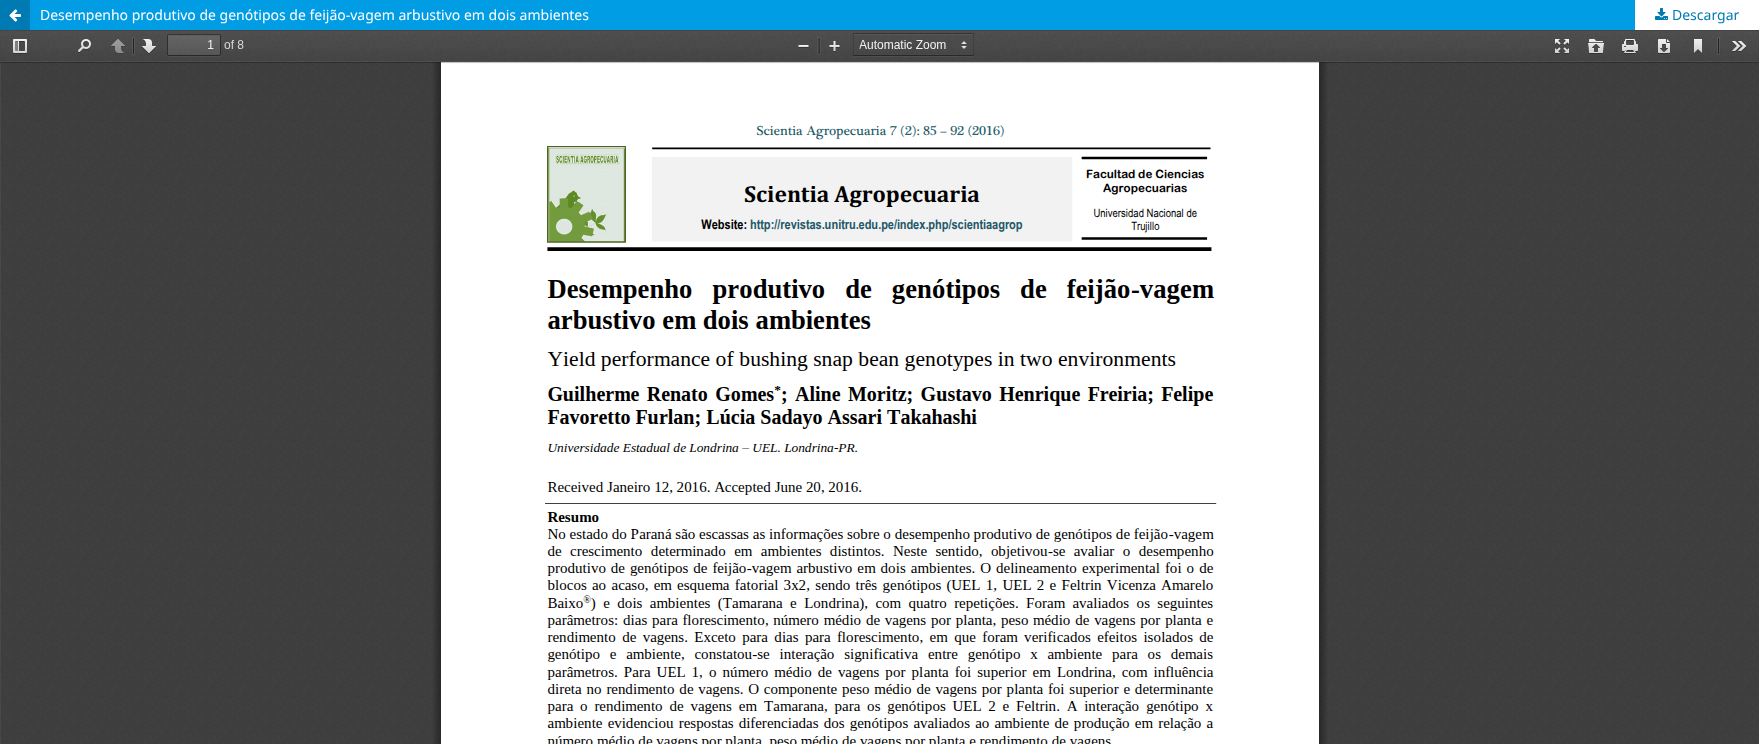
<svg xmlns="http://www.w3.org/2000/svg" width="1759" height="744" viewBox="0 0 1759 744">
  <rect width="100%" height="100%" fill="#fff"/>
  <path d="M30 0h1605v30H30z" fill="#009de5"/>
  <path d="M0 0h30v30H0z" fill="#007ab2"/>
  <image x="9" y="9" width="12" height="13" href="img/1.png"/>
  <image x="1655" y="8" width="13" height="12" href="img/2.png"/>
  <image x="0" y="30" width="1759" height="714" href="img/3.png"/>
  <text x="40" y="20" font-family="Noto Sans" font-size="14" fill="#fff">Desempenho produtivo de genótipos de feijão-vagem arbustivo em dois ambientes</text>
  <text x="1672" y="20" font-family="Noto Sans" font-size="14" fill="#007ab2">Descargar</text>
</svg>
